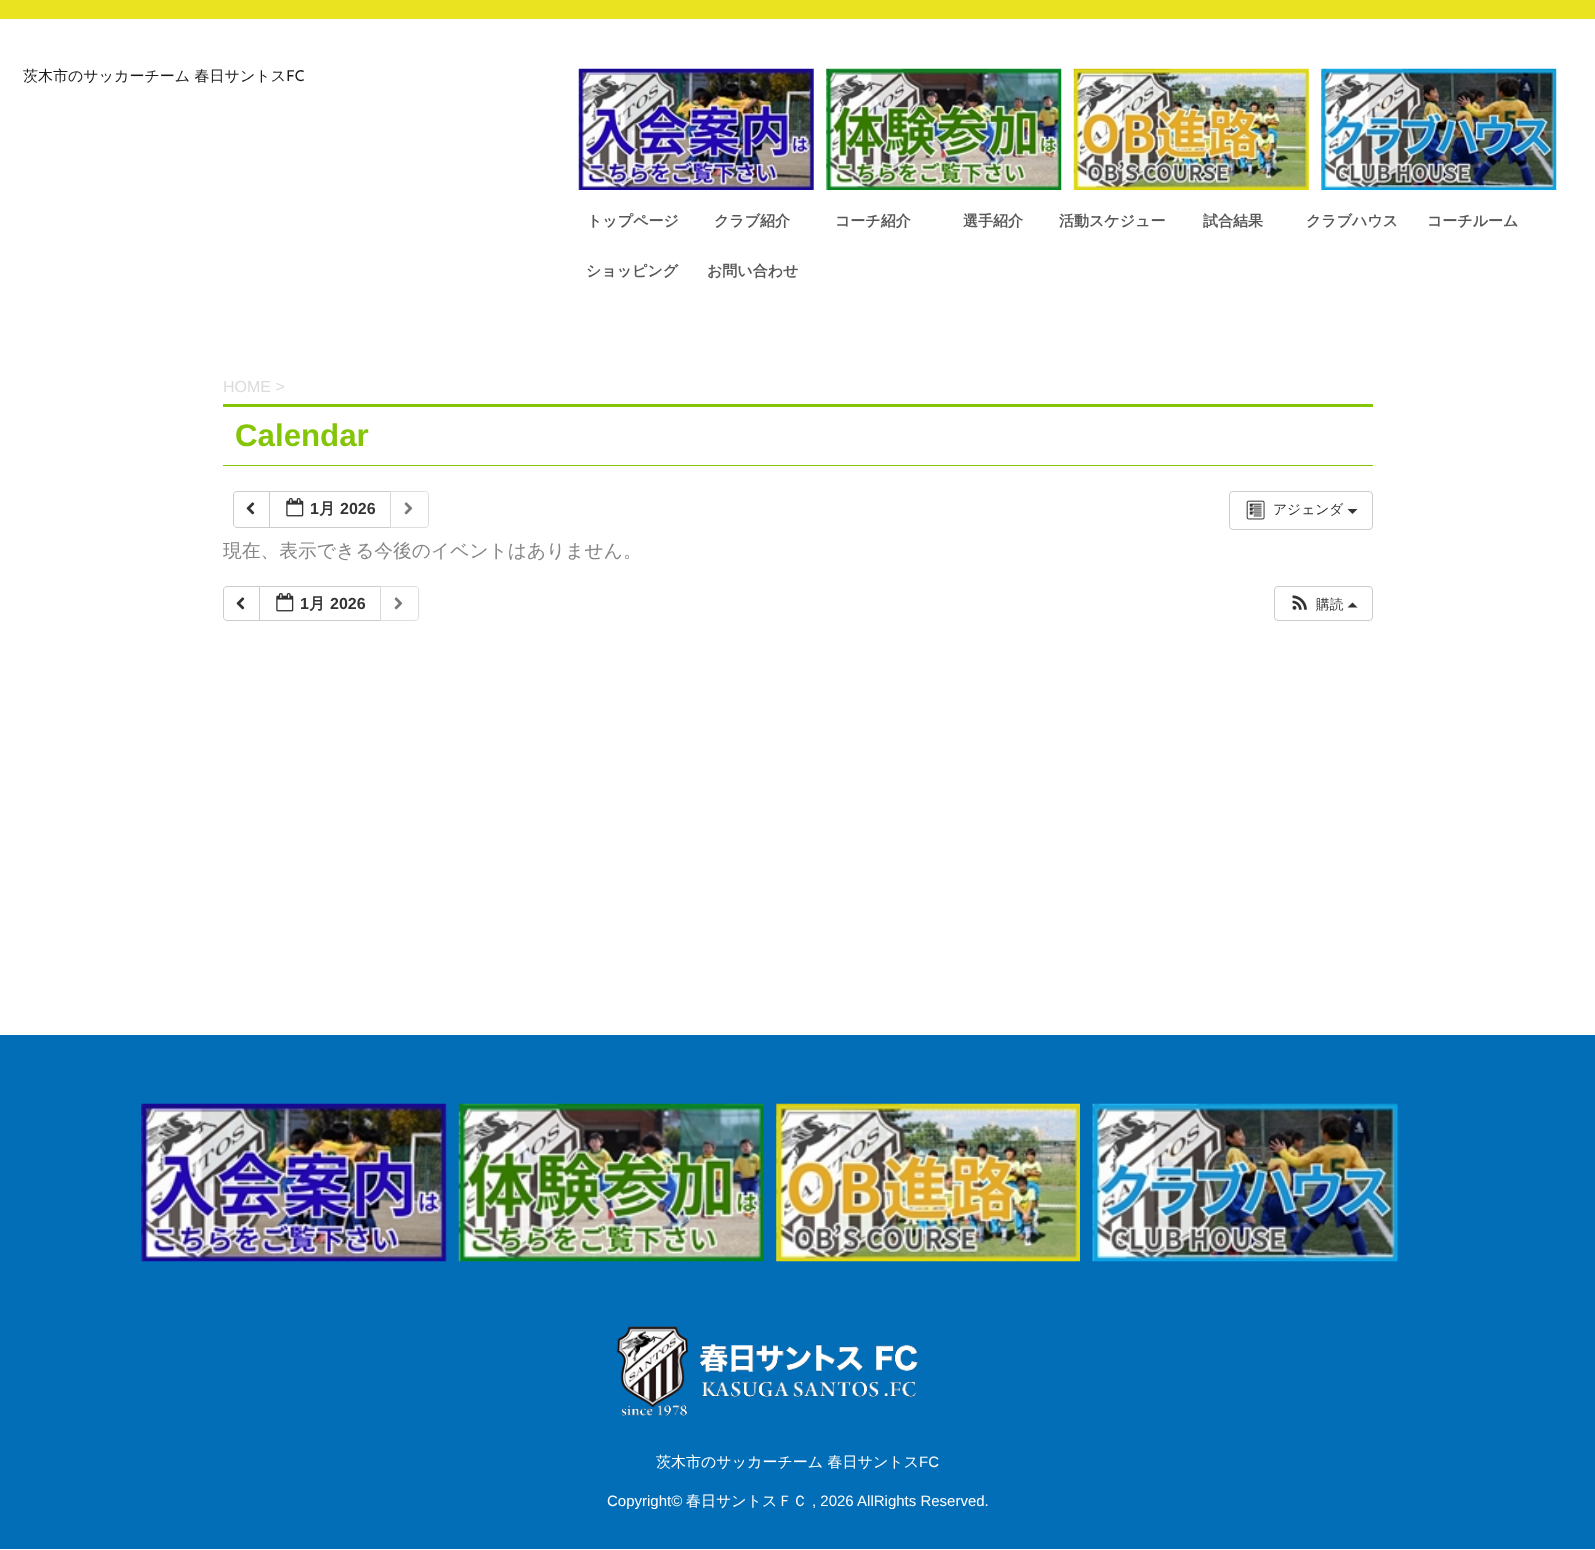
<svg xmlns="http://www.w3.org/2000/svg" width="1595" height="1550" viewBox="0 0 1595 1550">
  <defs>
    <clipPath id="clip1"><path d="M223 535h1150v44H223z"/></clipPath>
  </defs>
  <rect width="100%" height="100%" fill="#fff"/>
  <path d="M0 0h1595v19H0z" fill="#eae320"/>
  <image x="578" y="68" width="236" height="122" href="img/1.png"/>
  <image x="826" y="68" width="236" height="122" href="img/2.png"/>
  <image x="1073" y="68" width="236" height="122" href="img/3.png"/>
  <image x="1321" y="68" width="236" height="122" href="img/4.png"/>
  <path d="M223 404h1150v3H223z" fill="#84c507"/>
  <path d="M223 465h1150v1H223z" fill="#84c507"/>
  <path d="M237 491.5H269.5V527.5H237C235 527.5 233.5 526 233.5 524V495C233.5 493 235 491.5 237 491.5Z" fill="none" stroke="#ccc"/>
  <image x="246" y="502" width="9" height="13" href="img/5.png"/>
  <path d="M269.5 491.5h121v36H269.5z" fill="none" stroke="#ccc"/>
  <image x="286" y="498" width="18" height="19" href="img/6.png"/>
  <path d="M390 491H425C427 491 429 493 429 495V524C429 526 427 528 425 528H390Z" fill="#ffffffa6"/>
  <path d="M390.5 491.5H425C427 491.5 428.5 493 428.5 495V524C428.5 526 427 527.5 425 527.5H390.5Z" fill="none" stroke="#cccccca6"/>
  <image x="404" y="502" width="9" height="13" href="img/7.png"/>
  <rect x="1229.5" y="491.5" width="143" height="38" rx="3.5" fill="none" stroke="#ccc"/>
  <image x="1246" y="500" width="19" height="20" href="img/8.png"/>
  <path d="M1347.5 509H1357.5L1352.5 514Z" fill="#333"/>
  <path d="M227 586.5H259.5V620.5H227C225 620.5 223.5 619 223.5 617V590C223.5 588 225 586.5 227 586.5Z" fill="none" stroke="#ccc"/>
  <image x="236" y="597" width="9" height="13" href="img/5.png"/>
  <path d="M259.5 586.5h121v34H259.5z" fill="none" stroke="#ccc"/>
  <image x="276" y="593" width="18" height="19" href="img/6.png"/>
  <path d="M380 586H415C417 586 419 588 419 590V617C419 619 417 621 415 621H380Z" fill="#ffffffa6"/>
  <path d="M380.5 586.5H415C417 586.5 418.5 588 418.5 590V617C418.5 619 417 620.5 415 620.5H380.5Z" fill="none" stroke="#cccccca6"/>
  <image x="394" y="597" width="9" height="13" href="img/7.png"/>
  <rect x="1274.5" y="586.5" width="98" height="34" rx="3.5" fill="none" stroke="#ccc"/>
  <image x="1292" y="595" width="15" height="15" href="img/9.png"/>
  <path d="M1357.5 607.5H1347.5L1352.5 602.5Z" fill="#333"/>
  <path d="M0 1035h1595v514H0z" fill="#036eb8"/>
  <image x="141" y="1103" width="306" height="159" href="img/10.png"/>
  <image x="458" y="1103" width="306" height="159" href="img/11.png"/>
  <image x="776" y="1103" width="304" height="159" href="img/12.png"/>
  <image x="1092" y="1103" width="306" height="159" href="img/13.png"/>
  <image x="616" y="1326" width="302" height="91" href="img/14.png"/>
  <text x="23" y="81" font-family="WenQuanYi Zen Hei" font-size="15" font-weight="500" fill="#1a1a1a">茨木市のサッカーチーム 春日サントス</text>
  <text x="286" y="81" font-family="Josefin Sans" font-size="15" fill="#1a1a1a">FC</text>
  <g font-family="WenQuanYi Zen Hei" font-size="15" font-weight="bold" fill="#595757">
    <text x="587" y="226">トップページ</text>
    <text x="714" y="226">クラブ紹介</text>
    <text x="835" y="226">コーチ紹介</text>
    <text x="963" y="226">選手紹介</text>
    <text x="1059" y="226">活動スケジュー</text>
    <text x="1203" y="226">試合結果</text>
    <text x="1306" y="226">クラブハウス</text>
    <text x="1427" y="226">コーチルーム</text>
    <text x="586" y="276">ショッピング</text>
    <text x="707" y="276">お問い合わせ</text>
  </g>
  <text x="223" y="392" font-family="Liberation Sans" font-size="16" fill="#dbdbdb">HOME &gt;</text>
  <text x="235" y="446" font-family="Liberation Sans" font-size="31.25" font-weight="bold" fill="#84c507">Calendar</text>
  <text x="310" y="514" font-family="Liberation Sans" font-size="16" font-weight="bold" fill="#333">1</text>
  <text x="319" y="514" font-family="WenQuanYi Zen Hei" font-size="16" font-weight="bold" fill="#333">月</text>
  <text x="340" y="514" font-family="Liberation Sans" font-size="16" font-weight="bold" fill="#333">2026</text>
  <text x="1273" y="514" font-family="WenQuanYi Zen Hei" font-size="13.75" font-weight="500" fill="#333">アジェンダ</text>
  <g clip-path="url(#clip1)">
    <text x="223" y="557" font-family="WenQuanYi Zen Hei" font-size="18.75" font-weight="500" fill="#858585">現在、表示できる今後のイベントはありません。</text>
  </g>
  <text x="300" y="609" font-family="Liberation Sans" font-size="16" font-weight="bold" fill="#333">1</text>
  <text x="309" y="609" font-family="WenQuanYi Zen Hei" font-size="16" font-weight="bold" fill="#333">月</text>
  <text x="330" y="609" font-family="Liberation Sans" font-size="16" font-weight="bold" fill="#333">2026</text>
  <text x="1316" y="609" font-family="WenQuanYi Zen Hei" font-size="13.75" font-weight="500" fill="#333">購読</text>
  <text x="656" y="1467" font-family="WenQuanYi Zen Hei" font-size="15" font-weight="500" fill="#fff">茨木市のサッカーチーム 春日サントス</text>
  <g font-family="Liberation Sans" font-size="15" fill="#fff">
    <text x="919" y="1467">FC</text>
    <text x="607" y="1506">Copyright©</text>
  </g>
  <text x="686" y="1506" font-family="WenQuanYi Zen Hei" font-size="15" font-weight="500" fill="#fff">春日サントスＦＣ</text>
  <text x="812" y="1506" font-family="Liberation Sans" font-size="15" fill="#fff">, 2026 AllRights Reserved.</text>
</svg>
